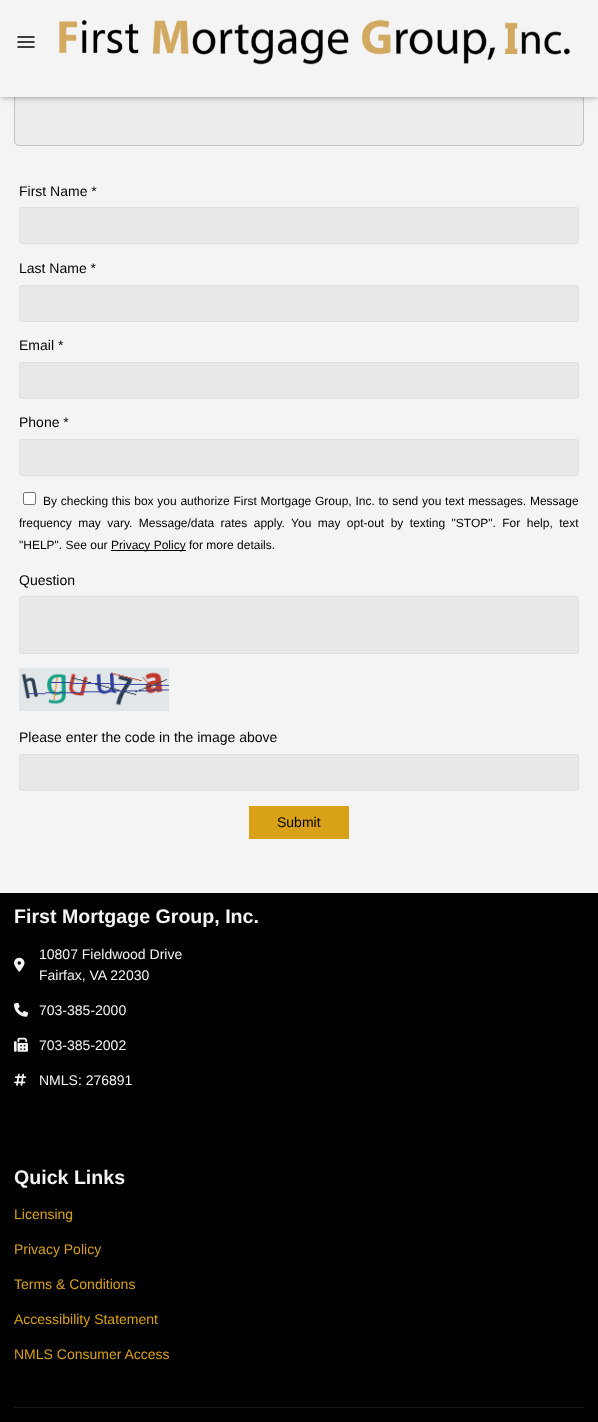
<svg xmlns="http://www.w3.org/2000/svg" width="598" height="1422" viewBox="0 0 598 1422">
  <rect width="100%" height="100%" fill="#f4f4f4"/>
  <rect x="14.5" y="-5.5" width="569" height="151" rx="4.5" fill="#ededed" stroke="#c3c3c3"/>
  <path d="M0 1h598v97H0z" fill="#0000001a" filter="blur(5px)"/>
  <path d="M1 3h596v95H1z" fill="#00000033" filter="blur(2px)"/>
  <path d="M0 0h598v97H0z" fill="#f4f4f4"/>
  <path d="M18 37H34M18 42H34M18 47H34" fill="none" stroke="#000" stroke-width="1.5" stroke-linecap="round" stroke-linejoin="round"/>
  <image x="59" y="19" width="511" height="46" href="img/1.png"/>
  <rect x="19.5" y="207.5" width="559" height="36" rx="2.5" fill="#e8e8e8" stroke="#e0e0e0"/>
  <rect x="19.5" y="285.5" width="559" height="36" rx="2.5" fill="#e8e8e8" stroke="#e0e0e0"/>
  <rect x="19.5" y="362.5" width="559" height="36" rx="2.5" fill="#e8e8e8" stroke="#e0e0e0"/>
  <rect x="19.5" y="439.5" width="559" height="36" rx="2.5" fill="#e8e8e8" stroke="#e0e0e0"/>
  <rect x="23.5" y="492.5" width="12" height="12" rx="1.5" fill="#fff" stroke="#767676"/>
  <path d="M111 550h75v1H111z" fill="#000"/>
  <rect x="19.5" y="596.5" width="559" height="57" rx="2.5" fill="#e8e8e8" stroke="#e0e0e0"/>
  <image x="19" y="668" width="150" height="43" href="img/2.png"/>
  <rect x="19.5" y="754.5" width="559" height="36" rx="2.5" fill="#e8e8e8" stroke="#e0e0e0"/>
  <path d="M249 806h100v33H249z" fill="#d9a118"/>
  <path d="M0 893h598v529H0z" fill="#000"/>
  <image x="14" y="957" width="11" height="15" href="img/3.png"/>
  <image x="14" y="1002" width="14" height="15" href="img/4.png"/>
  <image x="14" y="1037" width="14" height="15" href="img/5.png"/>
  <image x="14" y="1073" width="13" height="13" href="img/6.png"/>
  <path d="M14 1407h570v1H14z" fill="#181818"/>
  <g font-family="Liberation Sans" font-size="14" fill="#000">
    <text x="19" y="196">First Name *</text>
    <text x="19" y="273">Last Name *</text>
    <text x="19" y="350">Email *</text>
    <text x="19" y="427">Phone *</text>
  </g>
  <g font-family="Liberation Sans" font-size="12" fill="#000">
    <text x="43" y="505" word-spacing="0.4">By checking this box you authorize First Mortgage Group, Inc. to send you text messages. Message</text>
    <text x="19" y="527" word-spacing="3.1">frequency may vary. Message/data rates apply. You may opt-out by texting "STOP". For help, text</text>
    <text x="19" y="549">"HELP". See our</text>
    <text x="111" y="549">Privacy Policy for more details.</text>
  </g>
  <g font-family="Liberation Sans" font-size="14" fill="#000">
    <text x="19" y="585">Question</text>
    <text x="19" y="742">Please enter the code in the image above</text>
    <text x="277" y="827">Submit</text>
  </g>
  <text x="14" y="923" font-family="Liberation Sans" font-size="19.6" font-weight="bold" fill="#f4f4f4">First Mortgage Group, Inc.</text>
  <g font-family="Liberation Sans" font-size="14" fill="#f4f4f4">
    <text x="39" y="959">10807 Fieldwood Drive</text>
    <text x="39" y="980">Fairfax, VA 22030</text>
    <text x="39" y="1015">703-385-2000</text>
    <text x="39" y="1050">703-385-2002</text>
    <text x="39" y="1085">NMLS: 276891</text>
  </g>
  <text x="14" y="1184" font-family="Liberation Sans" font-size="19.6" font-weight="bold" fill="#f4f4f4">Quick Links</text>
  <g font-family="Liberation Sans" font-size="14" fill="#d9a118">
    <text x="14" y="1219">Licensing</text>
    <text x="14" y="1254">Privacy Policy</text>
    <text x="14" y="1289">Terms &amp; Conditions</text>
    <text x="14" y="1324">Accessibility Statement</text>
    <text x="14" y="1359">NMLS Consumer Access</text>
  </g>
</svg>
